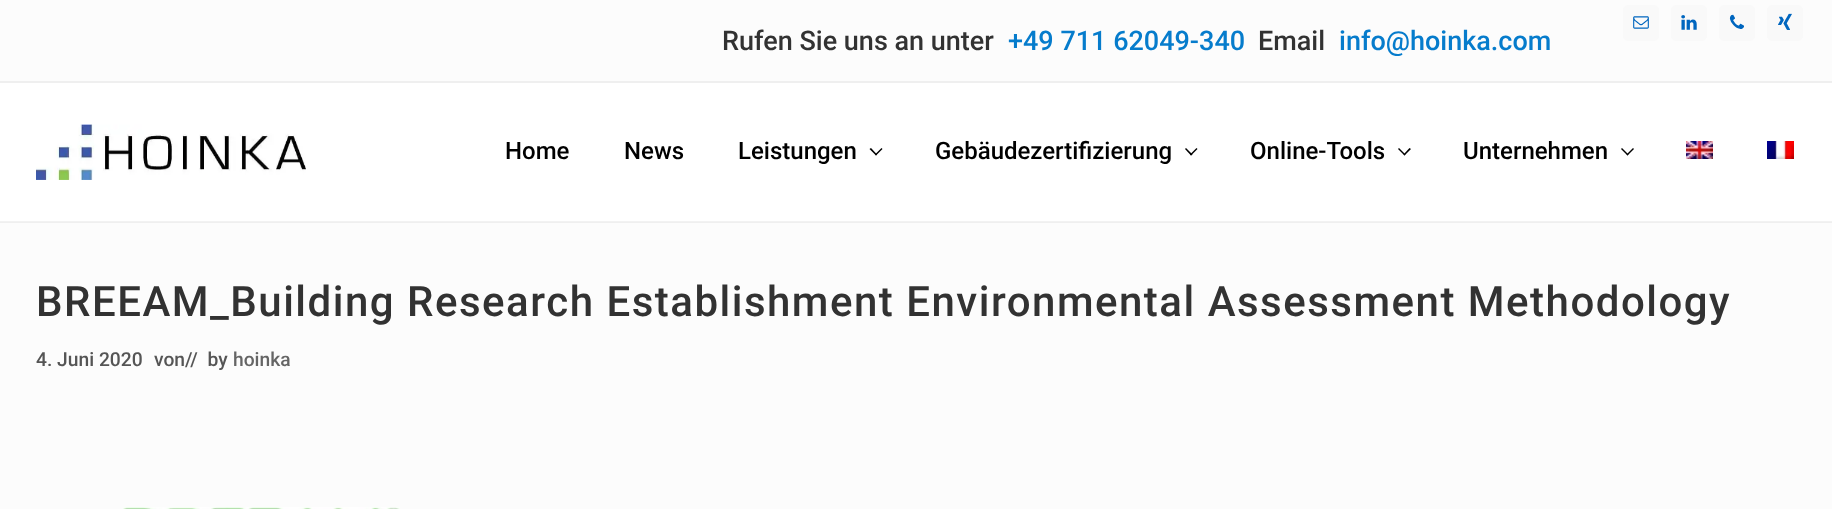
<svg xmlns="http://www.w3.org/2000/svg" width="1832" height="509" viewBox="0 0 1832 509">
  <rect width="100%" height="100%" fill="#fcfcfc"/>
  <path d="M0 222h1832v1H0z" fill="#efefef"/>
  <path d="M0 81h1832v2H0z" fill="#efefef"/>
  <rect x="1623" y="5" width="36" height="36" rx="5" fill="#f9f9f9"/>
  <image x="1633" y="16" width="16" height="13" href="img/1.png"/>
  <rect x="1671" y="5" width="36" height="36" rx="5" fill="#f9f9f9"/>
  <image x="1681" y="15" width="16" height="15" href="img/2.png"/>
  <rect x="1719" y="5" width="36" height="36" rx="5" fill="#f9f9f9"/>
  <image x="1729" y="14" width="15" height="15" href="img/3.png"/>
  <rect x="1767" y="5" width="36" height="36" rx="5" fill="#f9f9f9"/>
  <image x="1778" y="13" width="14" height="17" href="img/4.png"/>
  <path d="M0 83h1832v138H0z" fill="#fff"/>
  <path d="M0 221h1832v1H0z" fill="#f2f2f2"/>
  <image x="36" y="124" width="270" height="56" href="img/5.png"/>
  <path d="M881.5 148L882.5 149L876 155.5L875 154.5Z" fill="#000"/>
  <path d="M871 148L877 154.5L876 155.5L869.5 149Z" fill="#000"/>
  <path d="M1196.5 148L1197.5 149L1191 155.5L1190 154.5Z" fill="#000"/>
  <path d="M1186 148L1192.5 154.5L1191 155.5L1185 149Z" fill="#000"/>
  <path d="M1409.5 148L1411 149L1404.5 155.5L1403.5 154.5Z" fill="#000"/>
  <path d="M1399 148L1405.5 154.5L1404.5 155.5L1398 149Z" fill="#000"/>
  <path d="M1633 148L1634 149L1627.5 155.5L1626.5 154.5Z" fill="#000"/>
  <path d="M1622 148L1628.5 154.5L1627.5 155.5L1621 149Z" fill="#000"/>
  <image x="1686" y="141" width="27" height="18" href="img/6.png"/>
  <image x="1767" y="141" width="27" height="18" href="img/7.png"/>
  <image x="123" y="507" width="277" height="2" href="img/8.png"/>
  <text x="722" y="50" font-family="Roboto" font-size="27" font-weight="500" fill="#323232">Rufen Sie uns an unter</text>
  <text x="1008" y="50" font-family="Roboto" font-size="27" font-weight="500" fill="#067ccc">+49 711 62049-340</text>
  <text x="1258" y="50" font-family="Roboto" font-size="27" font-weight="500" fill="#323232">Email</text>
  <text x="1339" y="50" font-family="Roboto" font-size="27" font-weight="500" fill="#067ccc">info@hoinka.com</text>
  <g font-family="Roboto" font-size="24" font-weight="500" fill="#000">
    <text x="505" y="159">Home</text>
    <text x="624" y="159">News</text>
    <text x="738" y="159">Leistungen</text>
    <text x="935" y="159">Gebäudezertifizierung</text>
    <text x="1250" y="159">Online-Tools</text>
    <text x="1463" y="159">Unternehmen</text>
  </g>
  <text x="36" y="316" font-family="Roboto" font-size="42" font-weight="500" letter-spacing="1.5" fill="#323232">BREEAM_Building Research Establishment Environmental Assessment Methodology</text>
  <g font-family="Roboto" font-size="19.25" font-weight="500" fill="#555">
    <text x="36" y="366">4. Juni 2020</text>
    <text x="154" y="366" xml:space="preserve">von//  by</text>
  </g>
  <text x="233" y="366" font-family="Roboto" font-size="19.25" font-weight="500" fill="#656565">hoinka</text>
</svg>
